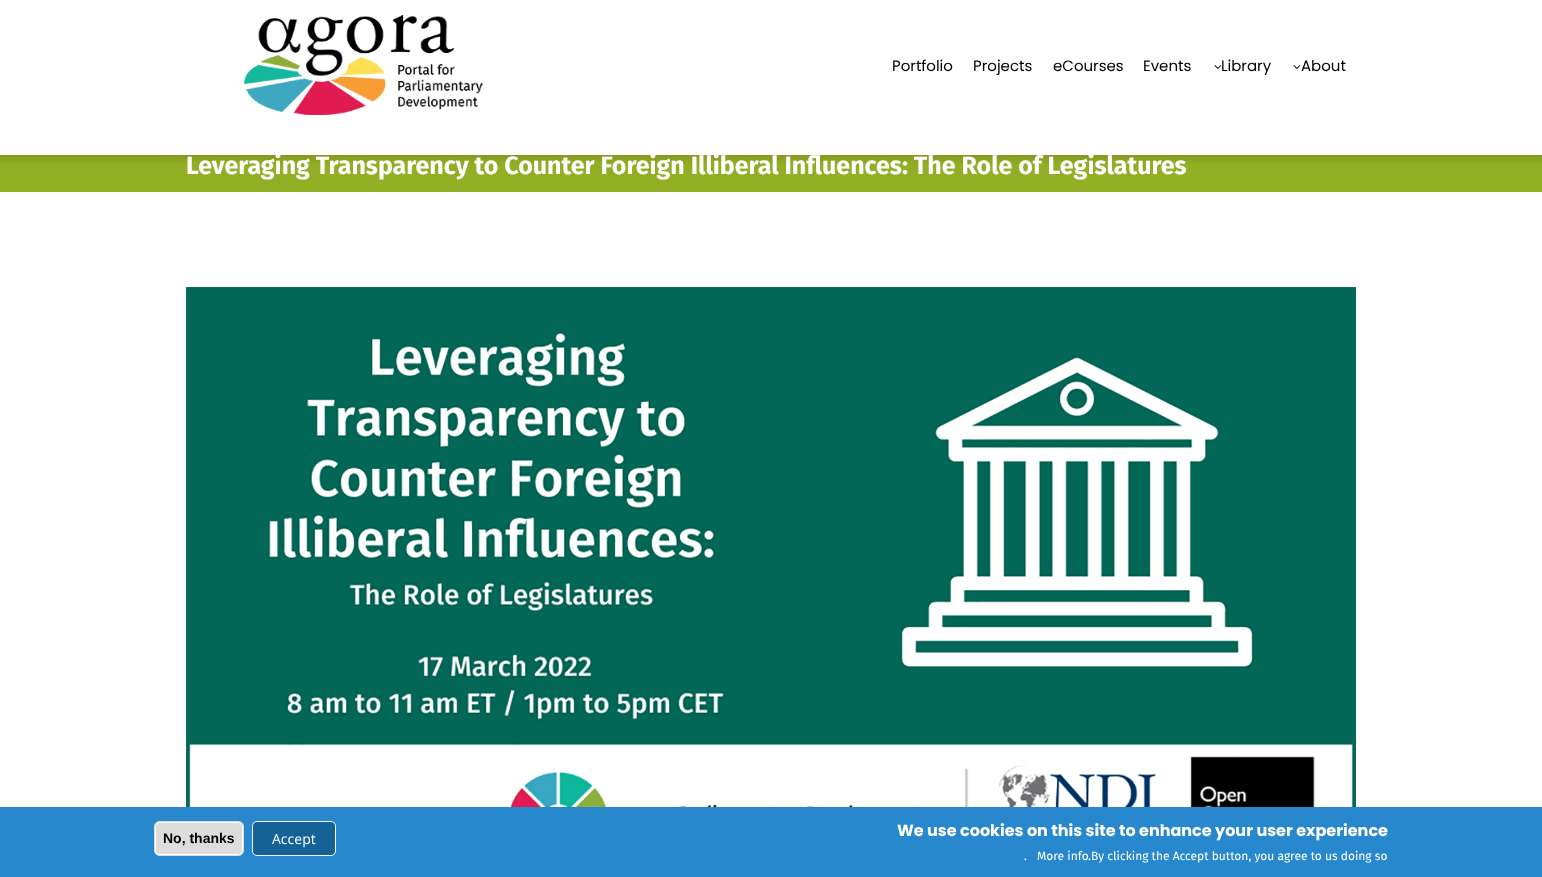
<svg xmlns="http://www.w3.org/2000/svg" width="1542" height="877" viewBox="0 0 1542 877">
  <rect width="100%" height="100%" fill="#fff"/>
  <path d="M0 155h1542v37H0z" fill="#92ae24"/>
  <path d="M-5 -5h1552v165H-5z" fill="#0000001a" filter="blur(2.5px)"/>
  <path d="M0 0h1542v155H0z" fill="#fff"/>
  <image x="244" y="15" width="240" height="100" href="img/1.png"/>
  <image x="1214" y="65" width="8" height="4" href="img/2.png"/>
  <image x="1293" y="65" width="8" height="4" href="img/2.png"/>
  <image x="186" y="287" width="1170" height="520" href="img/3.png"/>
  <path d="M0 807h1542v70H0z" fill="#2788cd"/>
  <rect x="154" y="821" width="90" height="35" rx="6" fill="#ddd"/>
  <rect x="155.5" y="822.5" width="87" height="32" rx="4.5" fill="none" stroke="#fff"/>
  <rect x="154.5" y="821.5" width="89" height="34" rx="5.5" fill="none" stroke="#dcdcdc"/>
  <rect x="252.5" y="821.5" width="83" height="34" rx="4.5" fill="#156298" stroke="#fff"/>
  <g font-family="Poppins" font-size="15" fill="#000">
    <text x="892" y="71">Portfolio</text>
    <text x="973" y="71">Projects</text>
    <text x="1053" y="71">eCourses</text>
    <text x="1143" y="71">Events</text>
    <text x="1221" y="71">Library</text>
    <text x="1301" y="71">About</text>
  </g>
  <text x="186" y="174" font-family="Fira Sans" font-size="25" font-weight="bold" fill="#fff">Leveraging Transparency to Counter Foreign Illiberal Influences: The Role of Legislatures</text>
  <text x="163" y="843" font-family="Liberation Sans" font-size="14" font-weight="bold" fill="#000">No, thanks</text>
  <text x="272" y="844" font-family="Open Sans" font-size="14" fill="#fff">Accept</text>
  <text x="897" y="836" font-family="Poppins" font-size="16" font-weight="bold" fill="#fff">We use cookies on this site to enhance your user experience</text>
  <g font-family="Fira Sans" font-size="12" fill="#fff">
    <text x="1024" y="860">.</text>
    <text x="1037" y="860">More info</text>
    <text x="1088" y="860">.By clicking the Accept button, you agree to us doing so</text>
  </g>
</svg>
